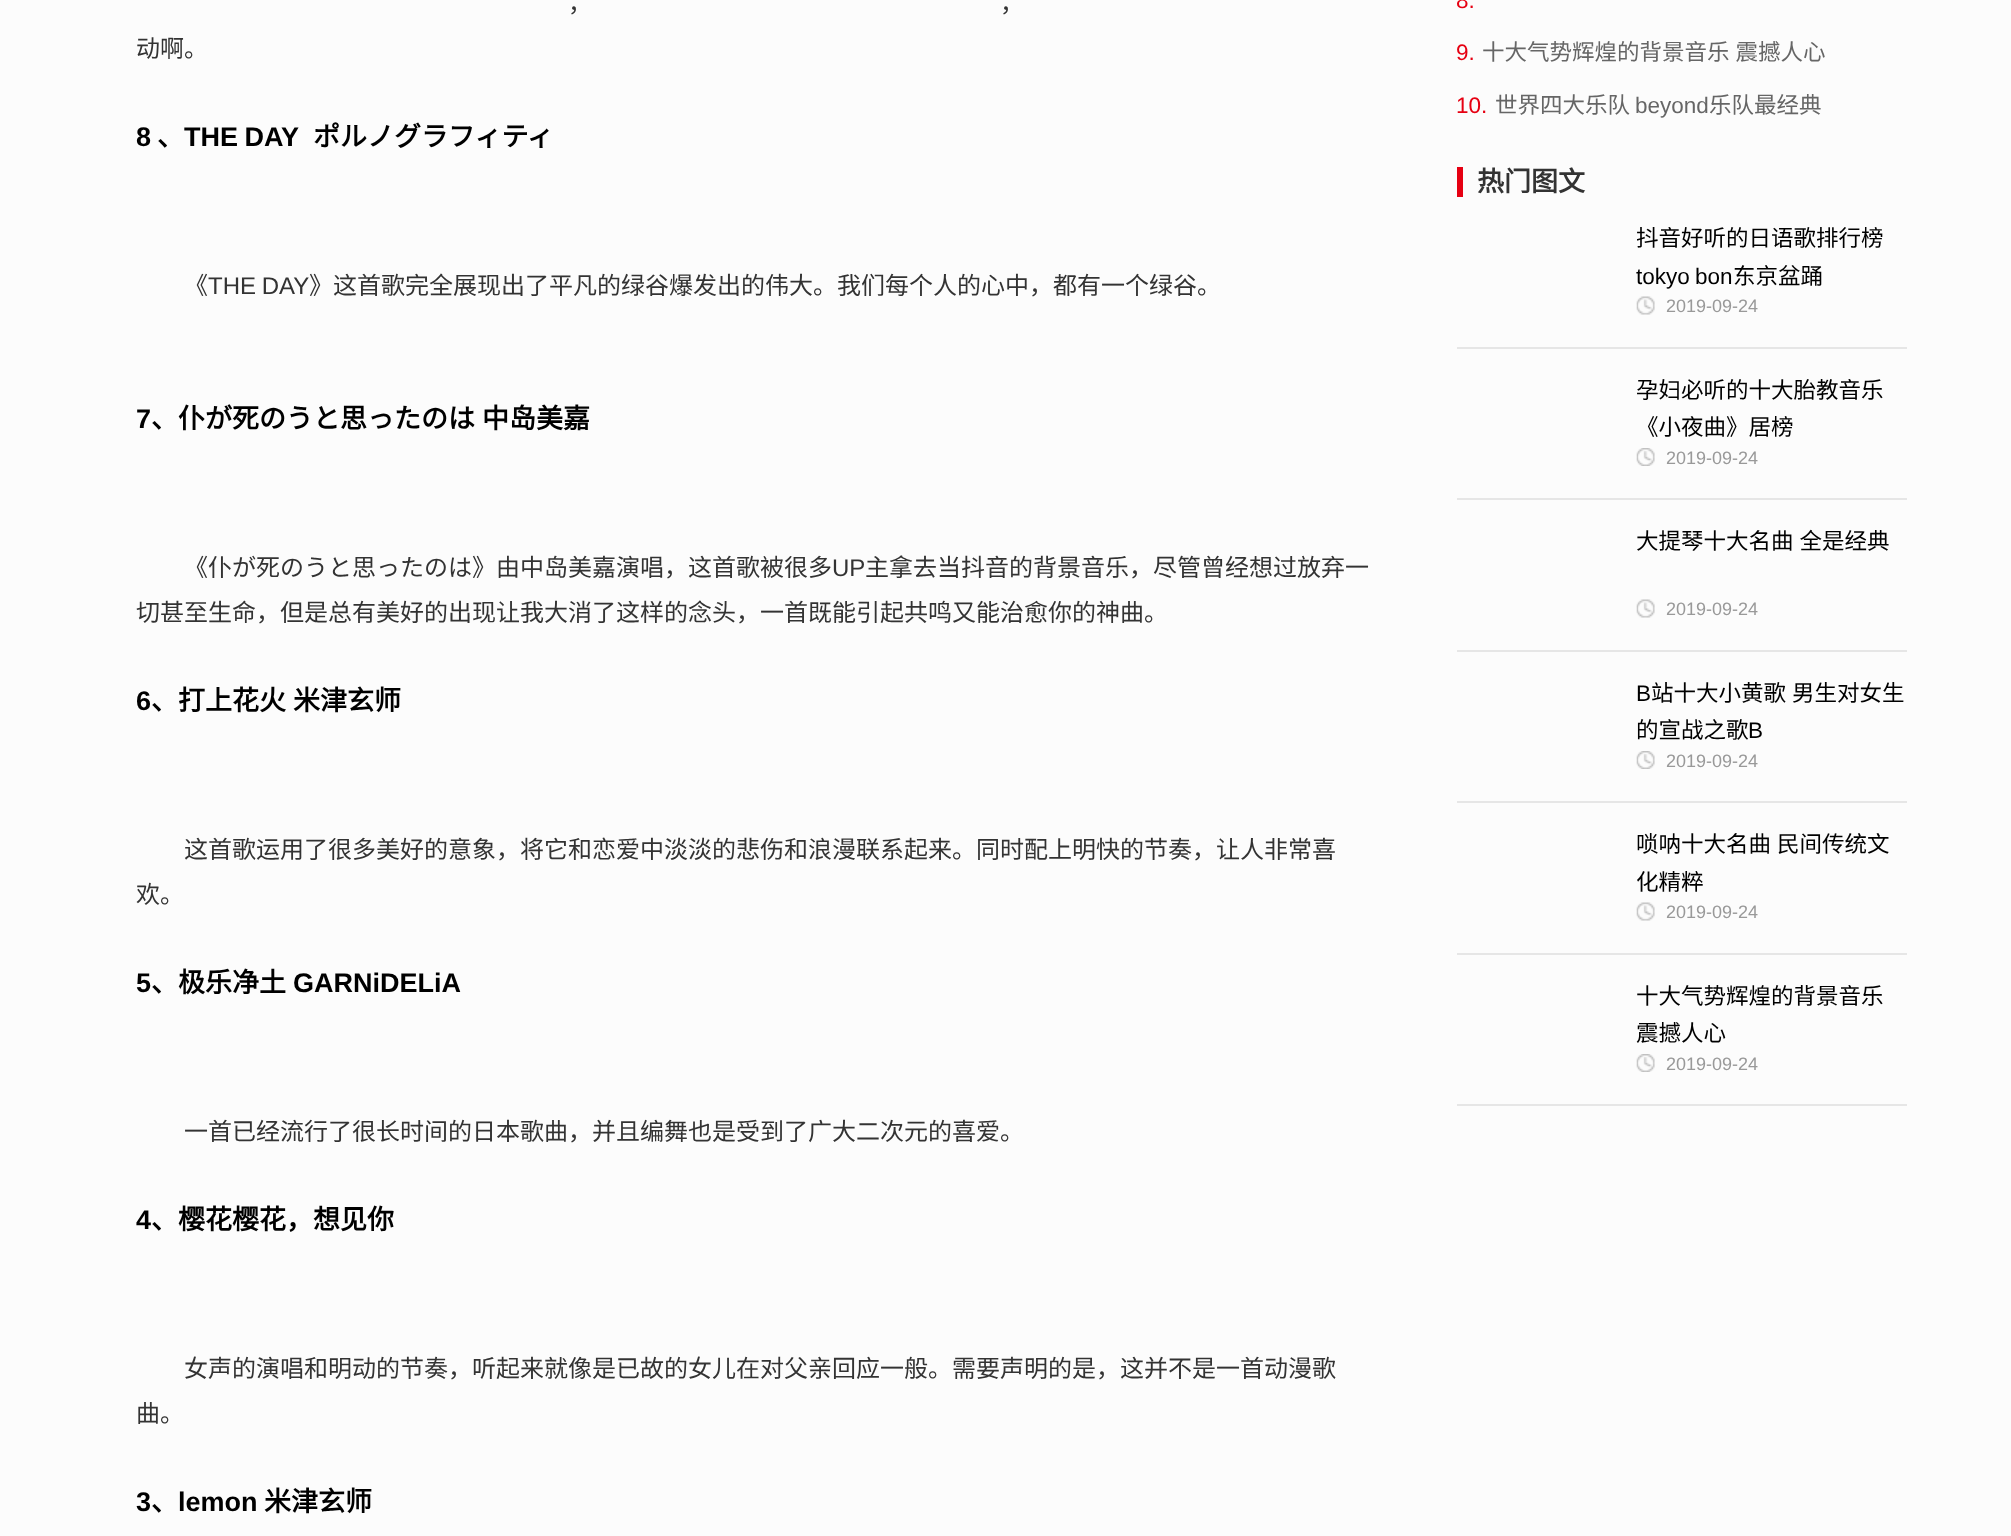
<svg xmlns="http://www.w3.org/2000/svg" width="2011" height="1536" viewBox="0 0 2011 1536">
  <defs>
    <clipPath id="clip1"><path d="M1457 0h18v17H1457z"/></clipPath>
    <clipPath id="clip2"><path d="M1457 35h18v34H1457z"/></clipPath>
    <clipPath id="clip3"><path d="M1637 227h270v67H1637z"/></clipPath>
  </defs>
  <rect width="100%" height="100%" fill="#fcfcfc"/>
  <path d="M1457 167h6v30H1457z" fill="#e60012"/>
  <path d="M1457 347h450v2H1457z" fill="#e6e6e6"/>
  <image x="1636" y="296" width="19" height="19" href="img/1.png"/>
  <path d="M1457 498h450v2H1457z" fill="#e6e6e6"/>
  <image x="1636" y="448" width="19" height="18" href="img/2.png"/>
  <path d="M1457 650h450v2H1457z" fill="#e6e6e6"/>
  <image x="1636" y="599" width="19" height="19" href="img/1.png"/>
  <path d="M1457 801h450v2H1457z" fill="#e6e6e6"/>
  <image x="1636" y="751" width="19" height="18" href="img/2.png"/>
  <path d="M1457 953h450v2H1457z" fill="#e6e6e6"/>
  <image x="1636" y="902" width="19" height="19" href="img/1.png"/>
  <path d="M1457 1104h450v2H1457z" fill="#e6e6e6"/>
  <image x="1636" y="1054" width="19" height="18" href="img/2.png"/>
  <g font-family="Noto Sans CJK SC" font-size="24" fill="#333">
    <text x="568" y="12">，</text>
    <text x="1000" y="12">，</text>
    <text x="136" y="57">动啊。</text>
  </g>
  <text x="136" y="146" font-family="Liberation Sans" font-size="27" font-weight="bold" fill="#000">8</text>
  <text x="157" y="146" font-family="Noto Sans CJK SC" font-size="27" font-weight="bold" fill="#000">、</text>
  <text x="184" y="146" word-spacing="-1" font-family="Liberation Sans" font-size="27" font-weight="bold" fill="#000">THE DAY</text>
  <text x="313" y="146" font-family="Noto Sans CJK SC" font-size="27" font-weight="bold" fill="#000">ポルノグラフィティ</text>
  <text x="184" y="294" font-family="Noto Sans CJK SC" font-size="24" fill="#333">《</text>
  <text x="208" y="294" word-spacing="-1" font-family="Liberation Sans" font-size="24" fill="#333">THE DAY</text>
  <text x="309" y="294" font-family="Noto Sans CJK SC" font-size="24" fill="#333">》这首歌完全展现出了平凡的绿谷爆发出的伟大。我们每个人的心中，都有一个绿谷。</text>
  <text x="136" y="428" font-family="Liberation Sans" font-size="27" font-weight="bold" fill="#000">7</text>
  <text x="151" y="428" word-spacing="1" font-family="Noto Sans CJK SC" font-size="27" font-weight="bold" fill="#000">、仆が死のうと思ったのは 中岛美嘉</text>
  <text x="184" y="576" font-family="Noto Sans CJK SC" font-size="24" fill="#333">《仆が死のうと思ったのは》由中岛美嘉演唱，这首歌被很多</text>
  <text x="832" y="576" font-family="Liberation Sans" font-size="24" fill="#333">UP</text>
  <g font-family="Noto Sans CJK SC" font-size="24" fill="#333">
    <text x="865" y="576">主拿去当抖音的背景音乐，尽管曾经想过放弃一</text>
    <text x="136" y="621">切甚至生命，但是总有美好的出现让我大消了这样的念头，一首既能引起共鸣又能治愈你的神曲。</text>
  </g>
  <text x="136" y="710" font-family="Liberation Sans" font-size="27" font-weight="bold" fill="#000">6</text>
  <text x="151" y="710" word-spacing="1" font-family="Noto Sans CJK SC" font-size="27" font-weight="bold" fill="#000">、打上花火 米津玄师</text>
  <g font-family="Noto Sans CJK SC" font-size="24" fill="#333">
    <text x="184" y="858">这首歌运用了很多美好的意象，将它和恋爱中淡淡的悲伤和浪漫联系起来。同时配上明快的节奏，让人非常喜</text>
    <text x="136" y="903">欢。</text>
  </g>
  <text x="136" y="992" font-family="Liberation Sans" font-size="27" font-weight="bold" fill="#000">5</text>
  <text x="151" y="992" font-family="Noto Sans CJK SC" font-size="27" font-weight="bold" fill="#000">、极乐净土</text>
  <text x="293" y="992" font-family="Liberation Sans" font-size="27" font-weight="bold" fill="#000">GARNiDELiA</text>
  <text x="184" y="1140" font-family="Noto Sans CJK SC" font-size="24" fill="#333">一首已经流行了很长时间的日本歌曲，并且编舞也是受到了广大二次元的喜爱。</text>
  <text x="136" y="1229" font-family="Liberation Sans" font-size="27" font-weight="bold" fill="#000">4</text>
  <text x="151" y="1229" font-family="Noto Sans CJK SC" font-size="27" font-weight="bold" fill="#000">、樱花樱花，想见你</text>
  <g font-family="Noto Sans CJK SC" font-size="24" fill="#333">
    <text x="184" y="1377">女声的演唱和明动的节奏，听起来就像是已故的女儿在对父亲回应一般。需要声明的是，这并不是一首动漫歌</text>
    <text x="136" y="1422">曲。</text>
  </g>
  <text x="136" y="1511" font-family="Liberation Sans" font-size="27" font-weight="bold" fill="#000">3</text>
  <text x="151" y="1511" font-family="Noto Sans CJK SC" font-size="27" font-weight="bold" fill="#000">、</text>
  <text x="178" y="1511" font-family="Liberation Sans" font-size="27" font-weight="bold" fill="#000">lemon</text>
  <text x="264" y="1511" font-family="Noto Sans CJK SC" font-size="27" font-weight="bold" fill="#000">米津玄师</text>
  <g clip-path="url(#clip1)">
    <text x="1456" y="8" font-family="Liberation Sans" font-size="22.5" fill="#e60012">8.</text>
  </g>
  <g clip-path="url(#clip2)">
    <text x="1456" y="60" font-family="Liberation Sans" font-size="22.5" fill="#e60012">9.</text>
  </g>
  <text x="1482" y="60" word-spacing="1" font-family="Noto Sans CJK SC" font-size="22.5" fill="#666">十大气势辉煌的背景音乐 震撼人心</text>
  <text x="1456" y="113" font-family="Liberation Sans" font-size="22.5" fill="#e60012">10.</text>
  <text x="1495" y="113" font-family="Noto Sans CJK SC" font-size="22.5" fill="#666">世界四大乐队</text>
  <text x="1635" y="113" font-family="Liberation Sans" font-size="22.5" fill="#666">beyond</text>
  <text x="1709" y="113" font-family="Noto Sans CJK SC" font-size="22.5" fill="#666">乐队最经典</text>
  <text x="1477" y="191" font-family="Noto Sans CJK SC" font-size="27" font-weight="bold" fill="#333">热门图文</text>
  <g clip-path="url(#clip3)">
    <text x="1636" y="246" font-family="Noto Sans CJK SC" font-size="22.5" fill="#000">抖音好听的日语歌排行榜</text>
  </g>
  <text x="1636" y="284" word-spacing="-1" font-family="Liberation Sans" font-size="22.5" fill="#000">tokyo bon</text>
  <text x="1733" y="284" font-family="Noto Sans CJK SC" font-size="22.5" fill="#000">东京盆踊</text>
  <text x="1666" y="312" font-family="Liberation Sans" font-size="18" fill="#999">2019-09-24</text>
  <g font-family="Noto Sans CJK SC" font-size="22.5" fill="#000">
    <text x="1636" y="398">孕妇必听的十大胎教音乐</text>
    <text x="1636" y="435">《小夜曲》居榜</text>
  </g>
  <text x="1666" y="464" font-family="Liberation Sans" font-size="18" fill="#999">2019-09-24</text>
  <text x="1636" y="549" word-spacing="1" font-family="Noto Sans CJK SC" font-size="22.5" fill="#000">大提琴十大名曲 全是经典</text>
  <text x="1666" y="615" font-family="Liberation Sans" font-size="18" fill="#999">2019-09-24</text>
  <text x="1636" y="701" font-family="Liberation Sans" font-size="22.5" fill="#000">B</text>
  <g font-family="Noto Sans CJK SC" font-size="22.5" fill="#000">
    <text x="1651" y="701" word-spacing="1">站十大小黄歌 男生对女生</text>
    <text x="1636" y="738">的宣战之歌</text>
  </g>
  <text x="1748" y="738" font-family="Liberation Sans" font-size="22.5" fill="#000">B</text>
  <text x="1666" y="767" font-family="Liberation Sans" font-size="18" fill="#999">2019-09-24</text>
  <g font-family="Noto Sans CJK SC" font-size="22.5" fill="#000">
    <text x="1636" y="852" word-spacing="1">唢呐十大名曲 民间传统文</text>
    <text x="1636" y="890">化精粹</text>
  </g>
  <text x="1666" y="918" font-family="Liberation Sans" font-size="18" fill="#999">2019-09-24</text>
  <g font-family="Noto Sans CJK SC" font-size="22.5" fill="#000">
    <text x="1636" y="1004">十大气势辉煌的背景音乐</text>
    <text x="1636" y="1041">震撼人心</text>
  </g>
  <text x="1666" y="1070" font-family="Liberation Sans" font-size="18" fill="#999">2019-09-24</text>
</svg>
